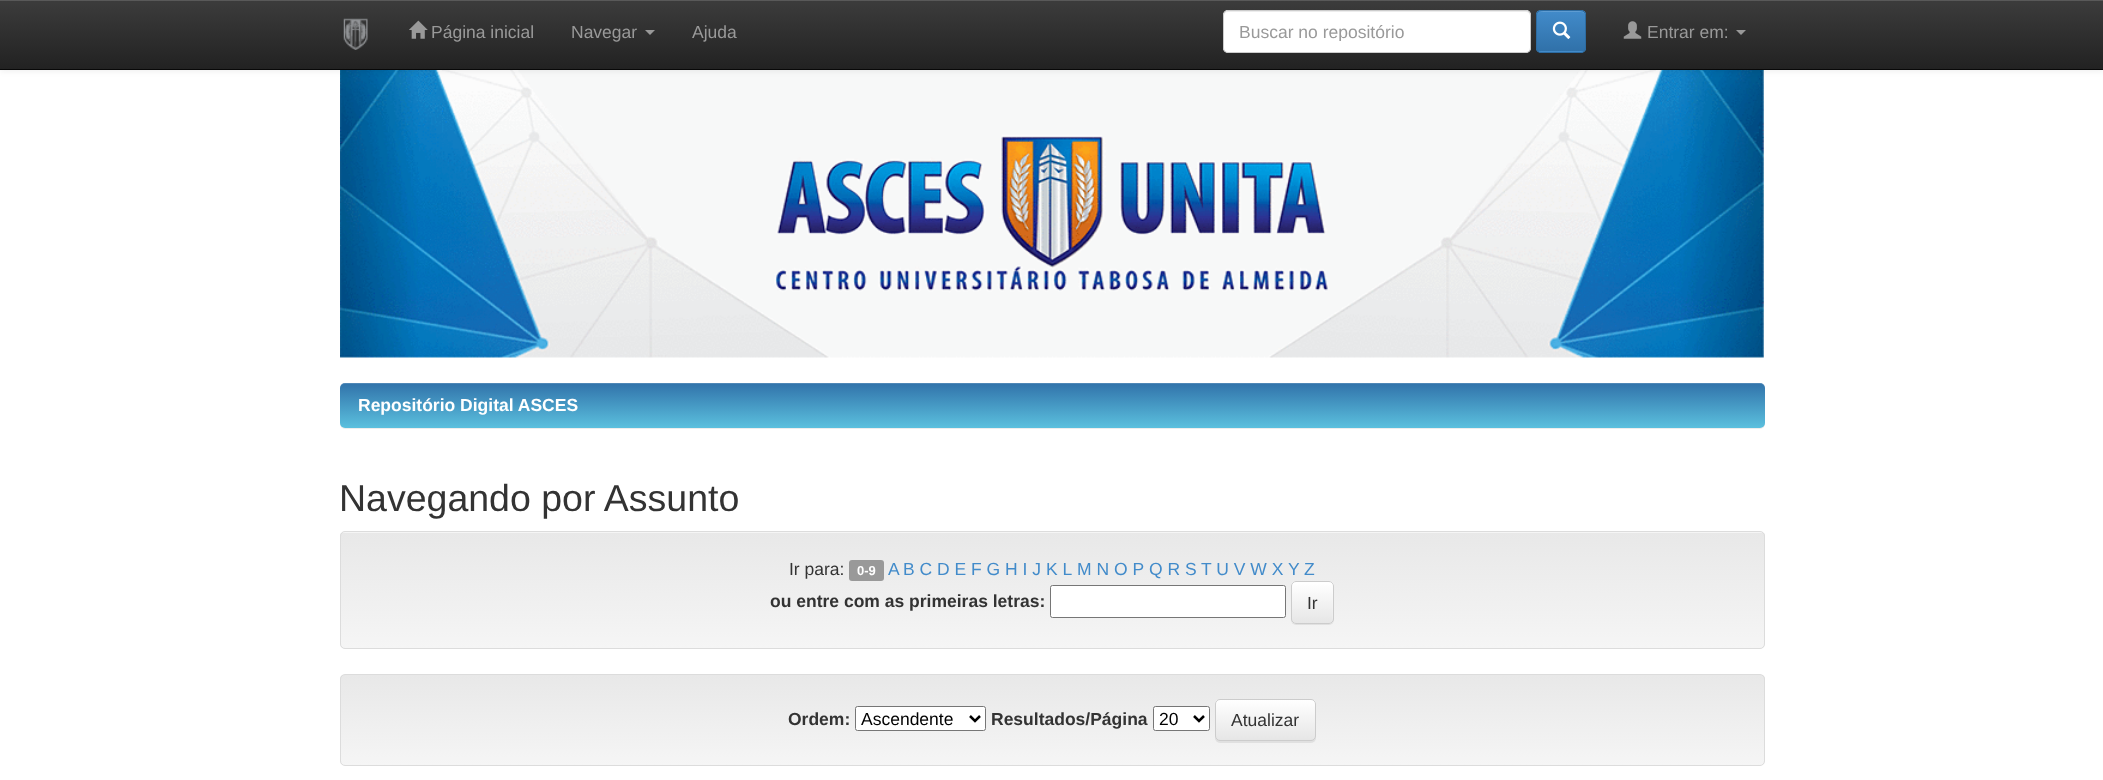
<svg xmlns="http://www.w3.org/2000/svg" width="2103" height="780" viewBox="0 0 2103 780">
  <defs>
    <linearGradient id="g1" gradientUnits="userSpaceOnUse" x1="1052" y1="0" x2="1052" y2="69"><stop offset="0" stop-color="#3c3c3c"/><stop offset="1" stop-color="#222"/></linearGradient>
    <clipPath id="clip1"><rect x="1536" y="10" width="50" height="43" rx="5"/></clipPath>
    <linearGradient id="g2" gradientUnits="userSpaceOnUse" x1="1561" y1="11" x2="1561" y2="51"><stop offset="0" stop-color="#428bca"/><stop offset="1" stop-color="#3071a9"/></linearGradient>
    <linearGradient id="g3" gradientUnits="userSpaceOnUse" x1="1053" y1="382" x2="1053" y2="428"><stop offset="0" stop-color="#3071a9"/><stop offset="1" stop-color="#5bc0de"/></linearGradient>
    <clipPath id="clip2"><rect x="340" y="531" width="1425" height="118" rx="5"/></clipPath>
    <linearGradient id="g4" gradientUnits="userSpaceOnUse" x1="1053" y1="532" x2="1053" y2="648"><stop offset="0" stop-color="#e8e8e8"/><stop offset="1" stop-color="#f5f5f5"/></linearGradient>
    <clipPath id="clip3"><rect x="1291" y="581" width="43" height="43" rx="5"/></clipPath>
    <linearGradient id="g5" gradientUnits="userSpaceOnUse" x1="1313" y1="583" x2="1313" y2="623"><stop offset="0" stop-color="#fff"/><stop offset="1" stop-color="#e6e6e6"/></linearGradient>
    <clipPath id="clip4"><rect x="340" y="674" width="1425" height="92" rx="5"/></clipPath>
    <linearGradient id="g6" gradientUnits="userSpaceOnUse" x1="1053" y1="675" x2="1053" y2="765"><stop offset="0" stop-color="#e8e8e8"/><stop offset="1" stop-color="#f5f5f5"/></linearGradient>
    <clipPath id="clip5"><rect x="1215" y="699" width="101" height="42" rx="5"/></clipPath>
    <linearGradient id="g7" gradientUnits="userSpaceOnUse" x1="1266" y1="700" x2="1266" y2="740"><stop offset="0" stop-color="#fff"/><stop offset="1" stop-color="#e6e6e6"/></linearGradient>
    <clipPath id="clip6"><path d="M1239 21h276v20H1239z"/></clipPath>
  </defs>
  <rect width="100%" height="100%" fill="#fff"/>
  <image x="340" y="70" width="1424" height="288" href="img/5.png"/>
  <path d="M0 1h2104v70H0z" fill="#00000012" filter="blur(3px)"/>
  <path d="M0 1h2103v68H0z" fill="url(#g1)"/>
  <path d="M0 0h2103v1H0z" fill="#595959"/>
  <path d="M0 69h2103v1H0z" fill="#080808"/>
  <image x="343" y="18" width="25" height="32" href="img/1.png"/>
  <image x="409" y="20" width="19" height="19" href="img/2.png"/>
  <path d="M645 30H655L650 35Z" fill="#999"/>
  <rect x="1223" y="10" width="308" height="43" rx="5" fill="#fff"/>
  <path d="M1228 12H1526C1528 12 1530 14 1530 16C1530 13 1529 11 1526 11H1228L1225 12C1224 13 1224 15 1224 16C1224 14 1225 12 1228 12Z" fill="#ececec"/>
  <rect x="1223.5" y="10.5" width="307" height="42" rx="4.5" fill="none" stroke="#ccc"/>
  <rect x="1536" y="10" width="50" height="43" rx="5" fill="#428bca"/>
  <g clip-path="url(#clip1)">
    <path d="M1536 11h50v40H1536z" fill="url(#g2)"/>
  </g>
  <path d="M1541 12H1581C1583 12 1585 14 1585 16C1585 10 1579 11 1574 11H1548C1544 11 1538 10 1538 16C1538 14 1539 12 1541 12Z" fill="#5e9cd2"/>
  <rect x="1536.5" y="10.5" width="49" height="42" rx="4.5" fill="none" stroke="#2d6ca2"/>
  <image x="1552" y="21" width="19" height="18" href="img/3.png"/>
  <image x="1623" y="21" width="19" height="18" href="img/4.png"/>
  <path d="M1736 30H1746L1741 35Z" fill="#999"/>
  <rect x="340" y="384" width="1425" height="45" rx="5" fill="#00000012" filter="blur(0.5px)"/>
  <rect x="340" y="383" width="1425" height="45" rx="5" fill="url(#g3)"/>
  <path d="M345 384H1760C1763 384 1765 386 1765 389C1765 386 1763 383 1760 383H345C342 383 340 386 340 389C340 386 342 384 345 384Z" fill="#ffffff26"/>
  <rect x="340" y="531" width="1425" height="118" rx="5" fill="#f5f5f5"/>
  <g clip-path="url(#clip2)">
    <path d="M340 533h1425v115H340z" fill="url(#g4)"/>
  </g>
  <rect x="340.5" y="531.5" width="1424" height="117" rx="4.5" fill="none" stroke="#dcdcdc"/>
  <rect x="849" y="560" width="35" height="21" rx="3" fill="#999"/>
  <rect x="1050.5" y="585.5" width="235" height="32" rx="2" fill="#fff" stroke="#767676"/>
  <rect x="1291" y="583" width="43" height="42" rx="5" fill="#00000012" filter="blur(0.5px)"/>
  <rect x="1291" y="581" width="43" height="43" rx="5" fill="#fff"/>
  <g clip-path="url(#clip3)">
    <path d="M1291 583h43v40H1291z" fill="url(#g5)"/>
  </g>
  <path d="M1296 584H1329C1331 584 1332 585 1332 588V620L1331.5 622C1332.5 621.5 1333 620 1333 619V587C1333 585 1331 583 1329 583H1297C1296 583 1294.5 583.5 1294 584.5Z" fill="#ffffff26"/>
  <rect x="1291.5" y="581.5" width="42" height="42" rx="4.5" fill="none" stroke="#ccc"/>
  <g clip-path="url(#clip4)">
    <path d="M340 675h1425v90H340z" fill="url(#g6)"/>
  </g>
  <rect x="340.5" y="674.5" width="1424" height="91" rx="4.5" fill="none" stroke="#dcdcdc"/>
  <rect x="855.5" y="706.5" width="130" height="24" rx="2" fill="#fff" stroke="#767676"/>
  <path d="M970 716L975 721L980 716" fill="none" stroke="#000" stroke-width="2.5"/>
  <rect x="1153.5" y="706.5" width="56" height="24" rx="2" fill="#fff" stroke="#767676"/>
  <path d="M1194 716L1199 721L1204 716" fill="none" stroke="#000" stroke-width="2.5"/>
  <rect x="1215" y="700" width="101" height="43" rx="5" fill="#00000012" filter="blur(0.5px)"/>
  <g clip-path="url(#clip5)">
    <path d="M1215 700h101v40H1215z" fill="url(#g7)"/>
  </g>
  <rect x="1215.5" y="699.5" width="100" height="41" rx="4.5" fill="none" stroke="#ccc"/>
  <g font-family="Liberation Sans" font-size="17.5" fill="#999">
    <text x="431" y="38">Página inicial</text>
    <text x="571" y="38">Navegar</text>
    <text x="692" y="38">Ajuda</text>
  </g>
  <g clip-path="url(#clip6)">
    <text x="1239" y="38" font-family="Liberation Sans" font-size="17.5" fill="#999">Buscar no repositório</text>
  </g>
  <text x="1647" y="38" font-family="Liberation Sans" font-size="17.5" fill="#999">Entrar em:</text>
  <text x="358" y="411" font-family="Liberation Sans" font-size="17.5" font-weight="bold" fill="#fff">Repositório Digital ASCES</text>
  <text x="339" y="511" font-family="Liberation Sans" font-size="37.5" fill="#333">Navegando por Assunto</text>
  <text x="789" y="575" font-family="Liberation Sans" font-size="17.5" fill="#333">Ir para:</text>
  <text x="857" y="575" font-family="Liberation Sans" font-size="13" font-weight="bold" fill="#fff">0-9</text>
  <g font-family="Liberation Sans" font-size="17.5" fill="#428bca">
    <text x="888" y="575">A</text>
    <text x="903" y="575">B C D E F G H I J K L</text>
    <text x="1077" y="575">M N O P</text>
    <text x="1149" y="575">Q R S</text>
    <text x="1201" y="575">T U V W X</text>
    <text x="1288" y="575">Y</text>
    <text x="1304" y="575">Z</text>
  </g>
  <text x="770" y="607" font-family="Liberation Sans" font-size="17.5" font-weight="bold" fill="#333">ou entre com as primeiras letras:</text>
  <text x="1307" y="609" font-family="Liberation Sans" font-size="17.5" fill="#333">Ir</text>
  <text x="788" y="725" font-family="Liberation Sans" font-size="17.5" font-weight="bold" fill="#333">Ordem:</text>
  <text x="861" y="725" font-family="Liberation Sans" font-size="17.5" fill="#000">Ascendente</text>
  <text x="991" y="725" font-family="Liberation Sans" font-size="17.5" font-weight="bold" fill="#333">Resultados/Página</text>
  <text x="1159" y="725" font-family="Liberation Sans" font-size="17.5" fill="#000">20</text>
  <text x="1231" y="726" font-family="Liberation Sans" font-size="17.5" fill="#333">Atualizar</text>
</svg>
